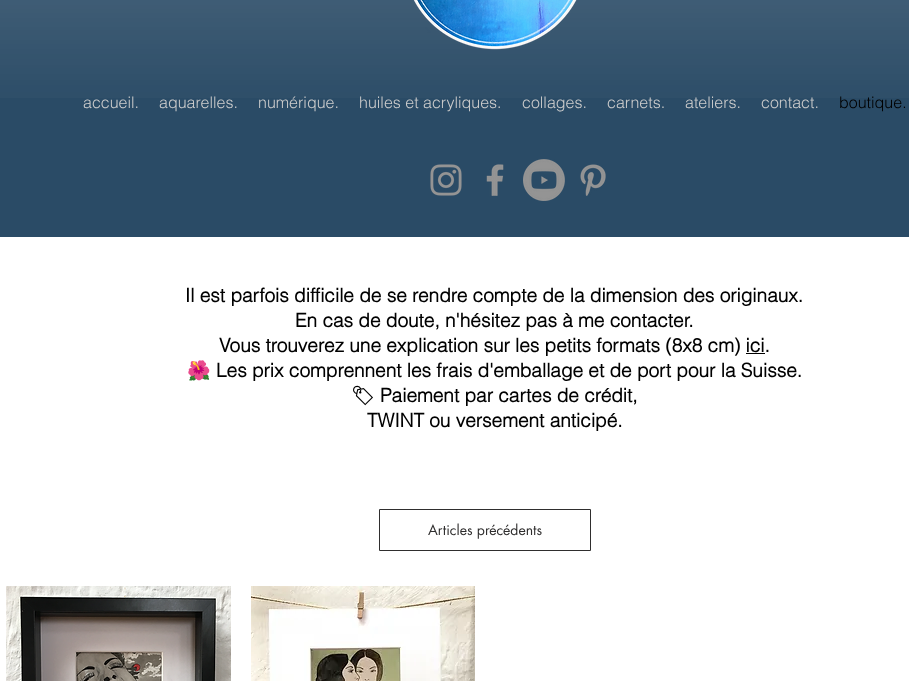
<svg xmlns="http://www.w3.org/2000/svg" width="909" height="681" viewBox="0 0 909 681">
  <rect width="100%" height="100%" fill="#fff"/>
  <path d="M0 0h909v237H0z" fill="#2a4b66"/>
  <image x="0" y="0" width="909" height="98" href="img/1.png"/>
  <image x="413" y="0" width="164" height="50" href="img/2.png"/>
  <image x="430" y="164" width="32" height="32" href="img/3.png"/>
  <image x="486" y="164" width="18" height="32" href="img/4.png"/>
  <image x="523" y="159" width="42" height="42" href="img/5.png"/>
  <image x="580" y="164" width="26" height="32" href="img/6.png"/>
  <path d="M746 353h19v1H746z" fill="#000"/>
  <path d="M379.5 509.5h211v41H379.5z" fill="none" stroke="#2f2e2e"/>
  <image x="6" y="586" width="225" height="95" href="img/7.png"/>
  <image x="251" y="586" width="224" height="95" href="img/8.png"/>
  <g font-family="helvetica" font-size="16" font-weight="300" fill="#ccc">
    <text x="83" y="108">accueil.</text>
    <text x="159" y="108">aquarelles.</text>
    <text x="258" y="108">numérique.</text>
    <text x="359" y="108">huiles et acryliques.</text>
    <text x="522" y="108">collages.</text>
    <text x="607" y="108">carnets.</text>
    <text x="685" y="108">ateliers.</text>
    <text x="761" y="108">contact.</text>
  </g>
  <text x="839" y="108" font-family="helvetica" font-size="16" font-weight="300" fill="#000">boutique.</text>
  <g font-family="helvetica" font-size="19" font-weight="bold" fill="#000">
    <text x="185" y="302">Il est parfois difficile de se rendre compte de la dimension des originaux.</text>
    <text x="295" y="327">En cas de doute, n'hésitez pas à me contacter.</text>
    <text x="219" y="352">Vous trouverez une explication sur les petits formats (8x8 cm) ici.</text>
  </g>
  <text x="187" y="377" font-family="Noto Color Emoji" font-size="19" font-weight="bold" fill="#000">🌺</text>
  <text x="216" y="377" font-family="helvetica" font-size="19" font-weight="bold" fill="#000">Les prix comprennent les frais d'emballage et de port pour la Suisse.</text>
  <text x="351" y="402" font-family="Noto Emoji" font-size="19" font-weight="bold" fill="#000">🏷</text>
  <g font-family="helvetica" font-size="19" font-weight="bold" fill="#000">
    <text x="380" y="402">Paiement par cartes de crédit,</text>
    <text x="367" y="427">TWINT ou versement anticipé.</text>
  </g>
  <text x="428" y="535" font-family="futura" font-size="14" fill="#2f2e2e">Articles précédents</text>
</svg>
